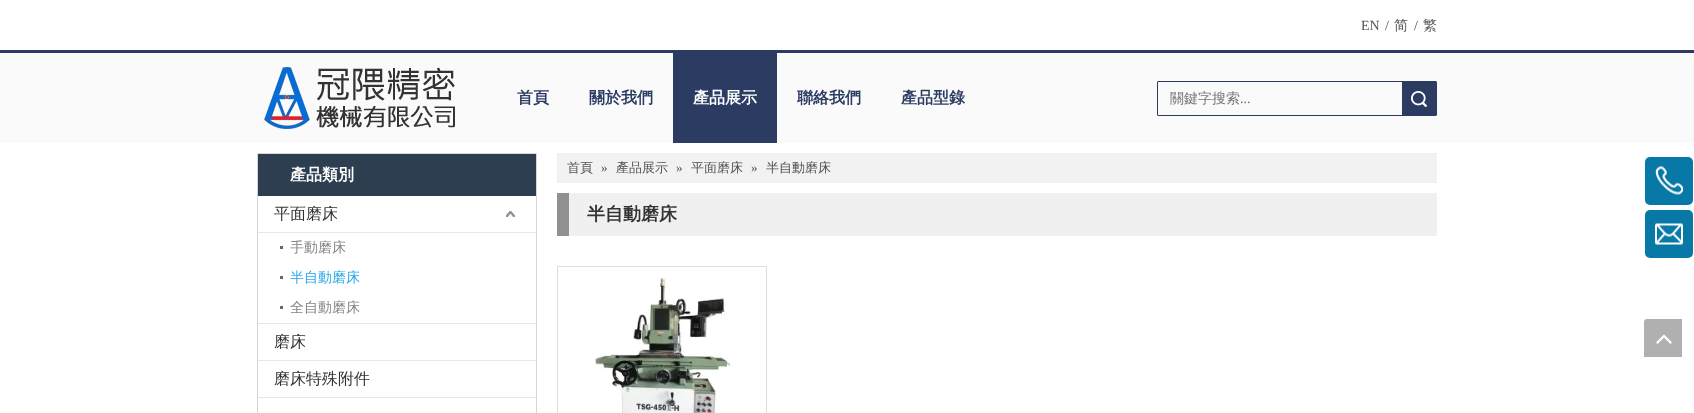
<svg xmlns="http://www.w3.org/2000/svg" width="1694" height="413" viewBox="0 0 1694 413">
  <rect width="100%" height="100%" fill="#fff"/>
  <path d="M0 53h1694v90H0z" fill="#fafafa"/>
  <path d="M0 50h1694v3H0z" fill="#2b3b62"/>
  <image x="264" y="67" width="191" height="62" href="img/1.png"/>
  <path d="M673 53h104v90H673z" fill="#2b3b62"/>
  <rect x="1157.5" y="81.5" width="279" height="34" rx="0.5" fill="none" stroke="#2b3b62"/>
  <path d="M1402 82h34v33H1402z" fill="#2b3b62"/>
  <image x="1411" y="91" width="16" height="16" href="img/2.png"/>
  <path d="M257.5 153.5h279v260H257.5z" fill="none" stroke="#d6d6d6"/>
  <path d="M258 154h278v42H258z" fill="#2c3e50"/>
  <path d="M258 232h278v1H258z" fill="#e7e7e7"/>
  <image x="506" y="211" width="9" height="6" href="img/3.png"/>
  <path d="M280 246h3v3H280z" fill="#666"/>
  <path d="M280 276h3v3H280z" fill="#666"/>
  <path d="M280 306h3v3H280z" fill="#666"/>
  <path d="M258 323h278v1H258z" fill="#e7e7e7"/>
  <path d="M258 360h278v1H258z" fill="#e7e7e7"/>
  <path d="M258 397h278v1H258z" fill="#e7e7e7"/>
  <path d="M557 154h880v28H557z" fill="#f2f2f2"/>
  <path d="M557 153h880v1H557z" fill="#eee"/>
  <path d="M557 182h880v1H557z" fill="#eee"/>
  <path d="M569 193h868v43H569z" fill="#f0f0f0"/>
  <path d="M557 193h12v43H557z" fill="#919191"/>
  <path d="M557.5 266.5h209v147H557.5z" fill="none" stroke="#dcdcdc"/>
  <image x="595" y="277" width="135" height="136" href="img/4.png"/>
  <rect x="1645" y="157" width="48" height="48" rx="5" fill="#0879a7"/>
  <image x="1655" y="166" width="28" height="29" href="img/5.png"/>
  <rect x="1645" y="210" width="48" height="48" rx="5" fill="#0879a7"/>
  <image x="1655" y="223" width="28" height="22" href="img/6.png"/>
  <image x="1644" y="319" width="38" height="38" href="img/7.png"/>
  <g font-family="Liberation Serif" font-size="14" fill="#545454">
    <text x="1361" y="30">EN</text>
    <text x="1385" y="30">/</text>
  </g>
  <text x="1394" y="30" font-family="WenQuanYi Zen Hei" font-size="14" font-weight="500" fill="#545454">简</text>
  <text x="1414" y="30" font-family="Liberation Serif" font-size="14" fill="#545454">/</text>
  <text x="1423" y="30" font-family="WenQuanYi Zen Hei" font-size="14" font-weight="500" fill="#545454">繁</text>
  <g font-family="WenQuanYi Zen Hei" font-size="16" font-weight="bold" fill="#2b3b62">
    <text x="517" y="103">首頁</text>
    <text x="589" y="103">關於我們</text>
  </g>
  <text x="693" y="103" font-family="WenQuanYi Zen Hei" font-size="16" font-weight="bold" fill="#fff">產品展示</text>
  <g font-family="WenQuanYi Zen Hei" font-size="16" font-weight="bold" fill="#2b3b62">
    <text x="797" y="103">聯絡我們</text>
    <text x="901" y="103">產品型錄</text>
  </g>
  <text x="1170" y="103" font-family="WenQuanYi Zen Hei" font-size="14" font-weight="500" fill="#757575">關鍵字搜索</text>
  <text x="1240" y="103" font-family="Liberation Serif" font-size="14" fill="#757575">...</text>
  <text x="290" y="180" font-family="WenQuanYi Zen Hei" font-size="16" font-weight="bold" fill="#fff">產品類別</text>
  <text x="274" y="219" font-family="WenQuanYi Zen Hei" font-size="16" font-weight="500" fill="#333">平面磨床</text>
  <text x="290" y="252" font-family="WenQuanYi Zen Hei" font-size="14" font-weight="500" fill="#868585">手動磨床</text>
  <text x="290" y="282" font-family="WenQuanYi Zen Hei" font-size="14" font-weight="500" fill="#2aa7ea">半自動磨床</text>
  <text x="290" y="312" font-family="WenQuanYi Zen Hei" font-size="14" font-weight="500" fill="#868585">全自動磨床</text>
  <g font-family="WenQuanYi Zen Hei" font-size="16" font-weight="500" fill="#333">
    <text x="274" y="347">磨床</text>
    <text x="274" y="384">磨床特殊附件</text>
  </g>
  <text x="567" y="172" font-family="WenQuanYi Zen Hei" font-size="13" font-weight="500" fill="#545454">首頁</text>
  <text x="601" y="172" font-family="Liberation Serif" font-size="13" fill="#545454">»</text>
  <text x="616" y="172" font-family="WenQuanYi Zen Hei" font-size="13" font-weight="500" fill="#545454">產品展示</text>
  <text x="676" y="172" font-family="Liberation Serif" font-size="13" fill="#545454">»</text>
  <text x="691" y="172" font-family="WenQuanYi Zen Hei" font-size="13" font-weight="500" fill="#545454">平面磨床</text>
  <text x="751" y="172" font-family="Liberation Serif" font-size="13" fill="#545454">»</text>
  <text x="766" y="172" font-family="WenQuanYi Zen Hei" font-size="13" font-weight="500" fill="#545454">半自動磨床</text>
  <text x="587" y="220" font-family="WenQuanYi Zen Hei" font-size="18" font-weight="bold" fill="#333">半自動磨床</text>
</svg>
